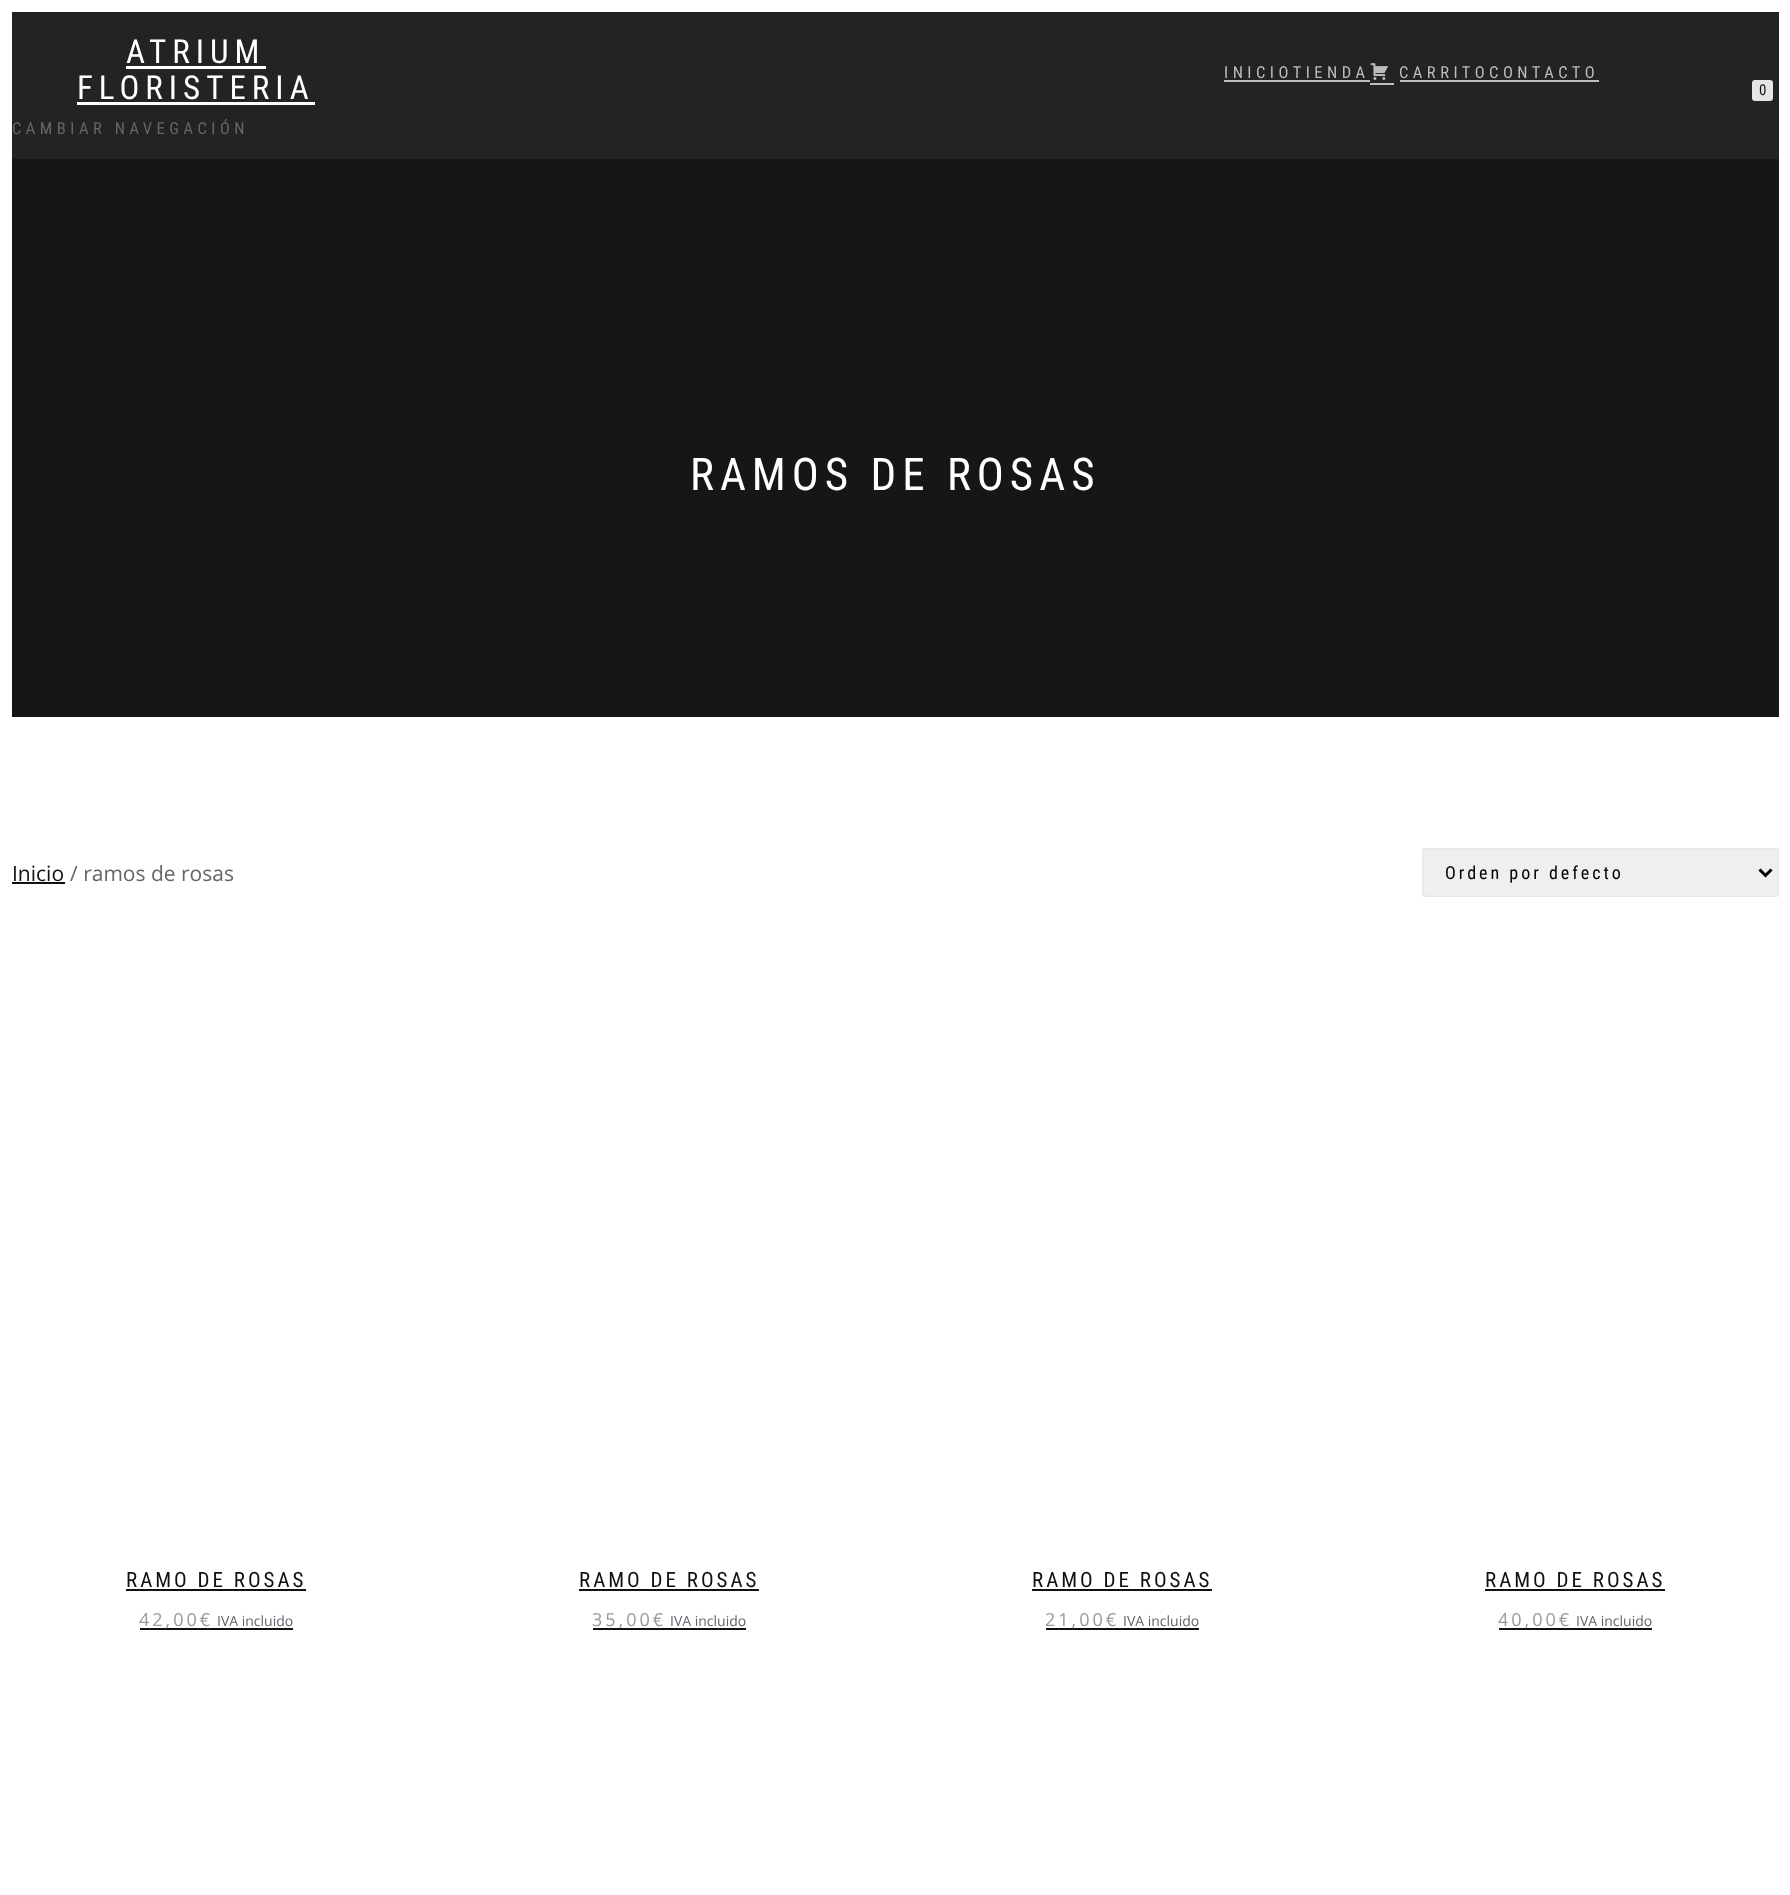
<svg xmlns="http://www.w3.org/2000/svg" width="1790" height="1895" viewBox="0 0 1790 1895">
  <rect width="100%" height="100%" fill="#fff"/>
  <path d="M12 12h1767v147H12z" fill="#232323"/>
  <path d="M126 66h140v3H126z" fill="#fff"/>
  <path d="M77 102h238v3H77z" fill="#fff"/>
  <path d="M1224 80h146v2H1224z" fill="#bdbdbd"/>
  <image x="1370" y="63" width="19" height="17" href="img/1.png"/>
  <path d="M1370 83h24v2H1370z" fill="#bdbdbd"/>
  <path d="M1400 80h199v2H1400z" fill="#bdbdbd"/>
  <rect x="1752" y="80" width="21" height="21" rx="3" fill="#e5e5e5"/>
  <path d="M12 159h1767v558H12z" fill="#161616"/>
  <path d="M12 882h53v2H12z" fill="#111"/>
  <rect x="1423" y="849" width="355" height="47" rx="2" fill="#efefef" stroke="#eaeaea" stroke-width="2"/>
  <path d="M1759.5 869.5L1765.5 875.5L1771.5 869.5" fill="none" stroke="#000" stroke-width="3"/>
  <path d="M126 1589h180v2H126z" fill="#111"/>
  <path d="M140 1628h153v2H140z" fill="#111"/>
  <path d="M579 1589h180v2H579z" fill="#111"/>
  <path d="M593 1628h153v2H593z" fill="#111"/>
  <path d="M1032 1589h180v2H1032z" fill="#111"/>
  <path d="M1046 1628h153v2H1046z" fill="#111"/>
  <path d="M1485 1589h180v2H1485z" fill="#111"/>
  <path d="M1499 1628h153v2H1499z" fill="#111"/>
  <g font-family="Roboto Condensed" font-size="33" letter-spacing="6" fill="#fff">
    <text x="126" y="63">ATRIUM</text>
    <text x="77" y="99">FLORISTERIA</text>
  </g>
  <text x="12" y="134" font-family="Roboto Condensed" font-size="16.5" letter-spacing="4.5" fill="#666">CAMBIAR NAVEGACIÓN</text>
  <g font-family="Roboto Condensed" font-size="16.5" letter-spacing="4.5" fill="#bdbdbd">
    <text x="1224" y="78">INICIOTIENDA</text>
    <text x="1399" y="78">CARRITOCONTACTO</text>
  </g>
  <text x="1759" y="95" font-family="Roboto Condensed" font-size="15" fill="#111">0</text>
  <text x="690" y="490" font-family="Roboto Condensed" font-size="45" letter-spacing="6" fill="#fff">RAMOS DE ROSAS</text>
  <text x="12" y="881" font-family="Open Sans" font-size="21" fill="#111">Inicio</text>
  <text x="70" y="881" font-family="Open Sans" font-size="21" fill="#666">/ ramos de rosas</text>
  <text x="1445" y="879" font-family="Roboto Condensed" font-size="18" letter-spacing="3" fill="#000">Orden por defecto</text>
  <text x="126" y="1587" font-family="Roboto Condensed" font-size="21" letter-spacing="3" fill="#111">RAMO DE ROSAS</text>
  <text x="139" y="1626" font-family="Open Sans" font-size="18" letter-spacing="3" fill="#999">42,00€</text>
  <text x="217" y="1626" font-family="Open Sans" font-size="14" fill="#60646c">IVA incluido</text>
  <text x="579" y="1587" font-family="Roboto Condensed" font-size="21" letter-spacing="3" fill="#111">RAMO DE ROSAS</text>
  <text x="592" y="1626" font-family="Open Sans" font-size="18" letter-spacing="3" fill="#999">35,00€</text>
  <text x="670" y="1626" font-family="Open Sans" font-size="14" fill="#60646c">IVA incluido</text>
  <text x="1032" y="1587" font-family="Roboto Condensed" font-size="21" letter-spacing="3" fill="#111">RAMO DE ROSAS</text>
  <text x="1045" y="1626" font-family="Open Sans" font-size="18" letter-spacing="3" fill="#999">21,00€</text>
  <text x="1123" y="1626" font-family="Open Sans" font-size="14" fill="#60646c">IVA incluido</text>
  <text x="1485" y="1587" font-family="Roboto Condensed" font-size="21" letter-spacing="3" fill="#111">RAMO DE ROSAS</text>
  <text x="1498" y="1626" font-family="Open Sans" font-size="18" letter-spacing="3" fill="#999">40,00€</text>
  <text x="1576" y="1626" font-family="Open Sans" font-size="14" fill="#60646c">IVA incluido</text>
</svg>
